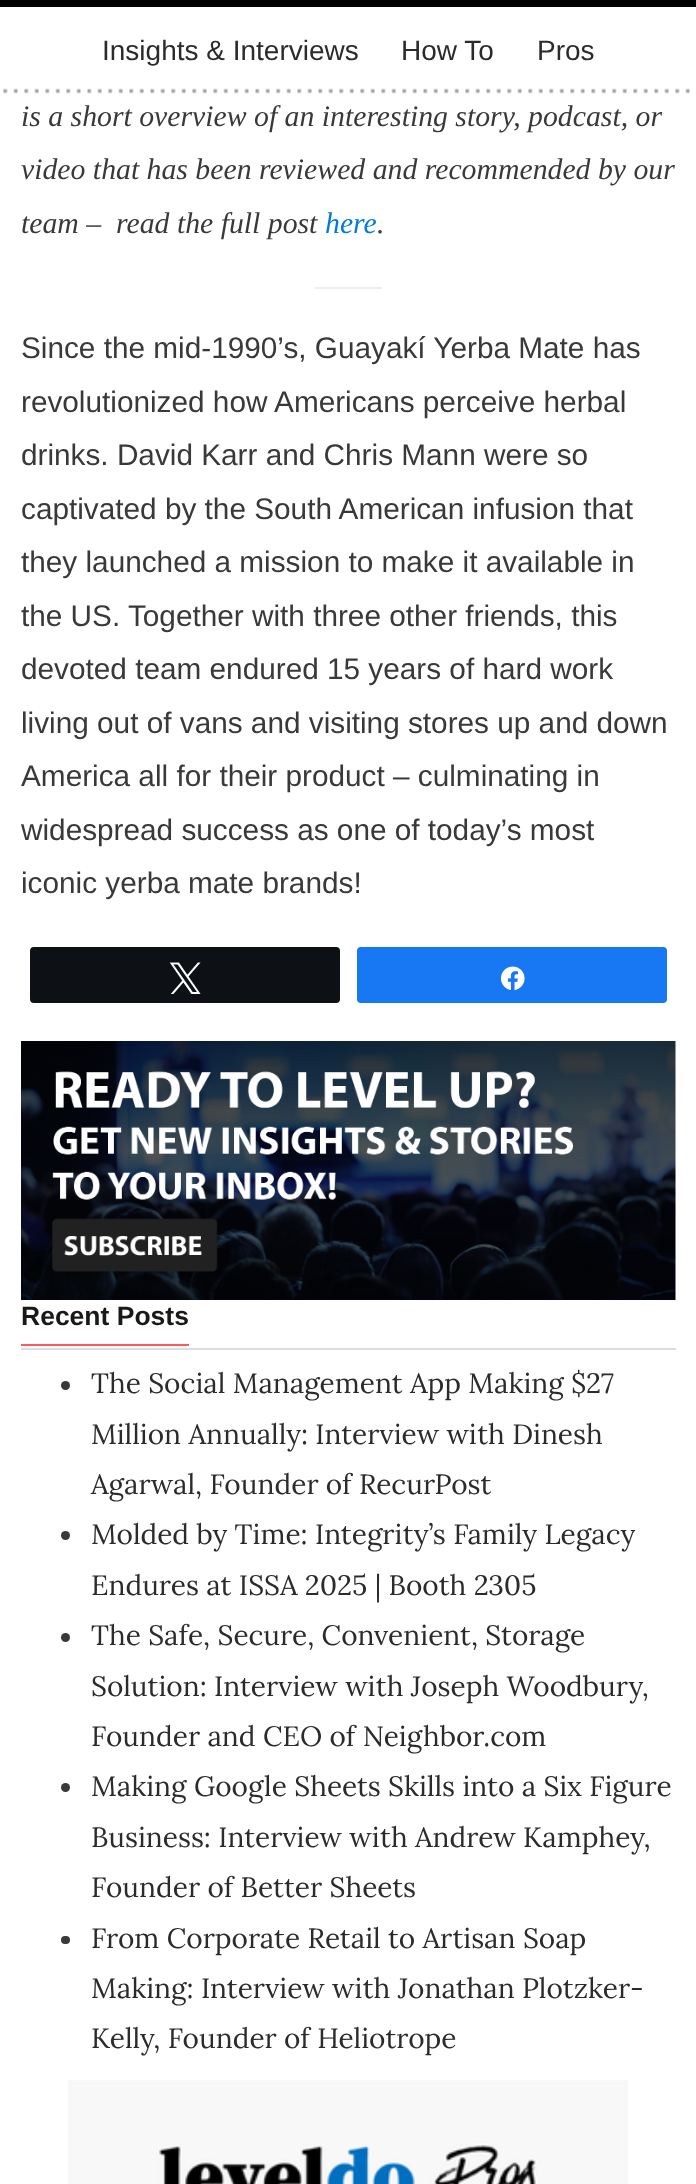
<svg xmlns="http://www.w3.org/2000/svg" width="696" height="2184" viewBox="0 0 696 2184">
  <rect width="100%" height="100%" fill="#fff"/>
  <path d="M0 0h696v7H0z" fill="#000"/>
  <image x="3" y="88" width="687" height="6" href="img/1.png"/>
  <path d="M315 287h67v2H315z" fill="#eee"/>
  <rect x="31" y="948" width="308" height="54" rx="3" fill="#0d1014" stroke="#0d1014" stroke-width="2"/>
  <image x="169" y="962" width="32" height="32" href="img/2.png"/>
  <rect x="358" y="948" width="308" height="54" rx="3" fill="#1877f2" stroke="#1877f2" stroke-width="2"/>
  <image x="500" y="966" width="25" height="25" href="img/3.png"/>
  <image x="21" y="1041" width="655" height="259" href="img/4.png"/>
  <path d="M21 1348h655v2H21z" fill="#dbdce3"/>
  <path d="M21 1344h168v2H21z" fill="#ff5a59"/>
  <circle cx="65.5" cy="1385.5" r="4.5" fill="#393939"/>
  <circle cx="65.5" cy="1535.5" r="4.5" fill="#393939"/>
  <circle cx="65.5" cy="1637.5" r="4.5" fill="#393939"/>
  <circle cx="65.5" cy="1787.5" r="4.5" fill="#393939"/>
  <rect x="61" y="1936" width="9" height="8" rx="4" fill="#393939"/>
  <image x="68" y="2080" width="560" height="104" href="img/5.png"/>
  <g font-family="Liberation Sans" font-size="28" fill="#2b2b2b">
    <text x="102" y="60">Insights &amp; Interviews</text>
    <text x="401" y="60">How To</text>
    <text x="537" y="60">Pros</text>
  </g>
  <g font-family="Liberation Serif" font-size="29.75" font-style="italic" fill="#393939">
    <text x="21" y="126">is a short overview of an interesting story, podcast, or</text>
    <text x="21" y="179">video that has been reviewed and recommended by our</text>
    <text x="21" y="233" xml:space="preserve">team –  read the full post</text>
  </g>
  <text x="325" y="233" font-family="Liberation Serif" font-size="29.75" font-style="italic" fill="#007bdc">here</text>
  <text x="377" y="233" font-family="Liberation Serif" font-size="29.75" font-style="italic" fill="#393939">.</text>
  <g font-family="Liberation Sans" font-size="29.75" fill="#393939">
    <text x="21" y="358">Since the mid-1990’s, Guayakí Yerba Mate has</text>
    <text x="21" y="412">revolutionized how Americans perceive herbal</text>
    <text x="21" y="465">drinks. David Karr and Chris Mann were so</text>
    <text x="21" y="519">captivated by the South American infusion that</text>
    <text x="21" y="572">they launched a mission to make it available in</text>
    <text x="21" y="626">the US. Together with three other friends, this</text>
    <text x="21" y="679">devoted team endured 15 years of hard work</text>
    <text x="21" y="733">living out of vans and visiting stores up and down</text>
    <text x="21" y="786">America all for their product – culminating in</text>
    <text x="21" y="840">widespread success as one of today’s most</text>
    <text x="21" y="893">iconic yerba mate brands!</text>
  </g>
  <text x="21" y="1325" font-family="Liberation Sans" font-size="26.5" font-weight="bold" fill="#191919">Recent Posts</text>
  <g font-family="Lora" font-size="28" fill="#2b2b2b">
    <text x="91" y="1393">The Social Management App Making $27</text>
    <text x="91" y="1444">Million Annually: Interview with Dinesh</text>
    <text x="91" y="1494">Agarwal, Founder of RecurPost</text>
    <text x="91" y="1544">Molded by Time: Integrity’s Family Legacy</text>
    <text x="91" y="1595">Endures at ISSA 2025 | Booth 2305</text>
    <text x="91" y="1645">The Safe, Secure, Convenient, Storage</text>
    <text x="91" y="1696">Solution: Interview with Joseph Woodbury,</text>
    <text x="91" y="1746">Founder and CEO of Neighbor.com</text>
    <text x="91" y="1796">Making Google Sheets Skills into a Six Figure</text>
    <text x="91" y="1847">Business: Interview with Andrew Kamphey,</text>
    <text x="91" y="1897">Founder of Better Sheets</text>
    <text x="91" y="1948">From Corporate Retail to Artisan Soap</text>
    <text x="91" y="1998">Making: Interview with Jonathan Plotzker-</text>
    <text x="91" y="2048">Kelly, Founder of Heliotrope</text>
  </g>
</svg>
